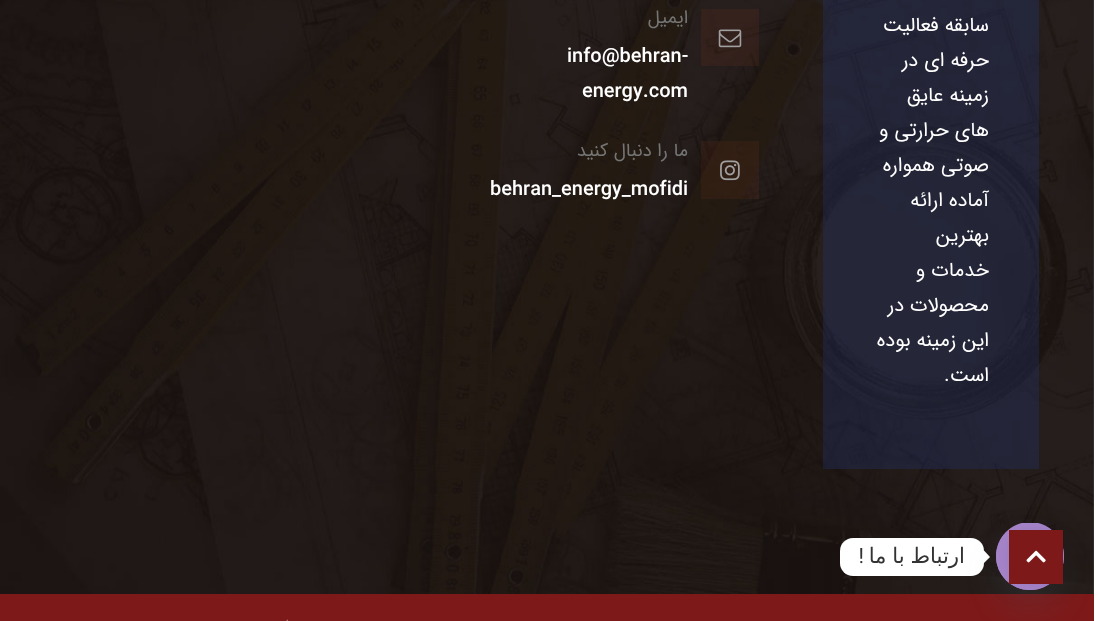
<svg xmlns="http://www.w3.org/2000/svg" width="1100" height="621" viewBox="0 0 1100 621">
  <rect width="100%" height="100%" fill="#fff"/>
  <image x="0" y="0" width="1094" height="594" href="img/1.png"/>
  <path d="M823 0h216v469H823z" fill="#1f37774f"/>
  <path d="M701 9h58v57H701z" fill="#f1552412"/>
  <image x="718" y="29" width="24" height="19" href="img/2.png"/>
  <path d="M701 141h58v58H701z" fill="#f1552412"/>
  <image x="720" y="160" width="20" height="21" href="img/3.png"/>
  <path d="M0 594h1094v27H0z" fill="#7d1919"/>
  <path d="M287 619.5L288 620L276.5 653L275 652.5Z" fill="#bb8787"/>
  <rect x="840" y="538" width="144" height="38" rx="13" fill="#fff"/>
  <path d="M984 563V550.5L990 557Z" fill="#fff"/>
  <rect x="996" y="543" width="68" height="67" rx="33.5" fill="#49687e29" filter="blur(15px)"/>
  <rect x="996" y="523" width="68" height="67" rx="33.5" fill="#a886cd"/>
  <image x="996" y="523" width="68" height="67" href="img/5.png"/>
  <path d="M1009 530h54v54H1009z" fill="#0000001a" filter="blur(12.5px)"/>
  <path d="M1009 530h54v54H1009z" fill="#7d1919"/>
  <image x="1026" y="550" width="20" height="13" href="img/4.png"/>
  <g font-family="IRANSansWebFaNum" font-size="20" direction="rtl" fill="#fff">
    <text x="989" y="31">سابقه فعالیت</text>
    <text x="989" y="66">حرفه ای در</text>
    <text x="989" y="101">زمینه عایق</text>
    <text x="989" y="136">های حرارتی و</text>
    <text x="989" y="171">صوتی همواره</text>
    <text x="989" y="206">آماده ارائه</text>
    <text x="989" y="241">بهترین</text>
    <text x="989" y="276">خدمات و</text>
    <text x="989" y="311">محصولات در</text>
    <text x="989" y="346">این زمینه بوده</text>
    <text x="989" y="381">است.</text>
  </g>
  <text x="688" y="23" font-family="IRANSansWebFaNum" font-size="18.75" direction="rtl" fill="#757575">ایمیل</text>
  <g font-family="IRANSansWebFaNum" font-size="20" font-weight="500" fill="#fff">
    <text x="567" y="62">info@behran-</text>
    <text x="582" y="97">energy.com</text>
  </g>
  <text x="688" y="156" font-family="IRANSansWebFaNum" font-size="18.75" direction="rtl" fill="#757575">ما را دنبال کنید</text>
  <text x="490" y="195" font-family="IRANSansWebFaNum" font-size="20" font-weight="500" fill="#fff">behran_energy_mofidi</text>
  <text x="965" y="563" word-spacing="-1" font-family="DejaVu Sans" font-size="21.25" direction="rtl" fill="#333">ارتباط با ما</text>
  <text x="864" y="563" font-family="Roboto" font-size="21.25" direction="rtl" fill="#333">!</text>
</svg>
